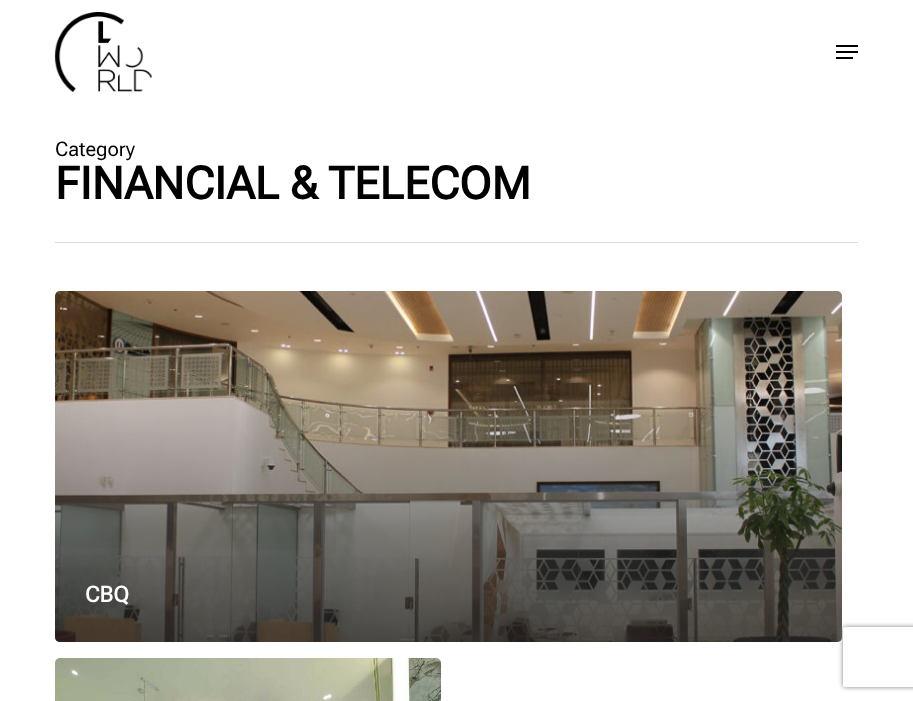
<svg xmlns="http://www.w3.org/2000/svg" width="913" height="701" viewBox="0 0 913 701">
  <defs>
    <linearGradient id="g1" gradientUnits="userSpaceOnUse" x1="451" y1="379" x2="451" y2="643"><stop offset="0" stop-color="#232323" stop-opacity="0"/><stop offset="1" stop-color="#232323" stop-opacity="0.65"/></linearGradient>
    <clipPath id="clip1"><path d="M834 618H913V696H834ZM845 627H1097C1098 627 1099 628 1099 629V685C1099 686 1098 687 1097 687H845C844 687 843 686 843 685V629C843 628 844 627 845 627Z" clip-rule="evenodd"/></clipPath>
  </defs>
  <rect width="100%" height="100%" fill="#fff"/>
  <image x="54" y="12" width="98" height="80" href="img/1.png"/>
  <path d="M836 45h22v2H836z" fill="#000"/>
  <path d="M836 57h17v2H836z" fill="#000"/>
  <path d="M836 51h22v2H836z" fill="#000"/>
  <path d="M55 242h803v1H55z" fill="#d9d9d9"/>
  <image x="55" y="291" width="787" height="351" href="img/2.png"/>
  <path d="M55 379H842V637C842 640 840 642 837 642H60C57 642 55 640 55 637Z" fill="url(#g1)"/>
  <image x="55" y="658" width="386" height="43" href="img/3.png"/>
  <g clip-path="url(#clip1)">
    <rect x="843" y="627" width="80" height="60" rx="2" fill="#808080" filter="blur(2.5px)"/>
  </g>
  <text x="55" y="156" font-family="Roboto Flex" font-size="20" fill="#000">Category</text>
  <text x="55" y="199" font-family="Roboto Flex" font-size="45" font-weight="bold" fill="#000">FINANCIAL &amp; TELECOM</text>
  <text x="85" y="602" font-family="Roboto Flex" font-size="22" font-weight="bold" fill="#fff">CBQ</text>
</svg>
